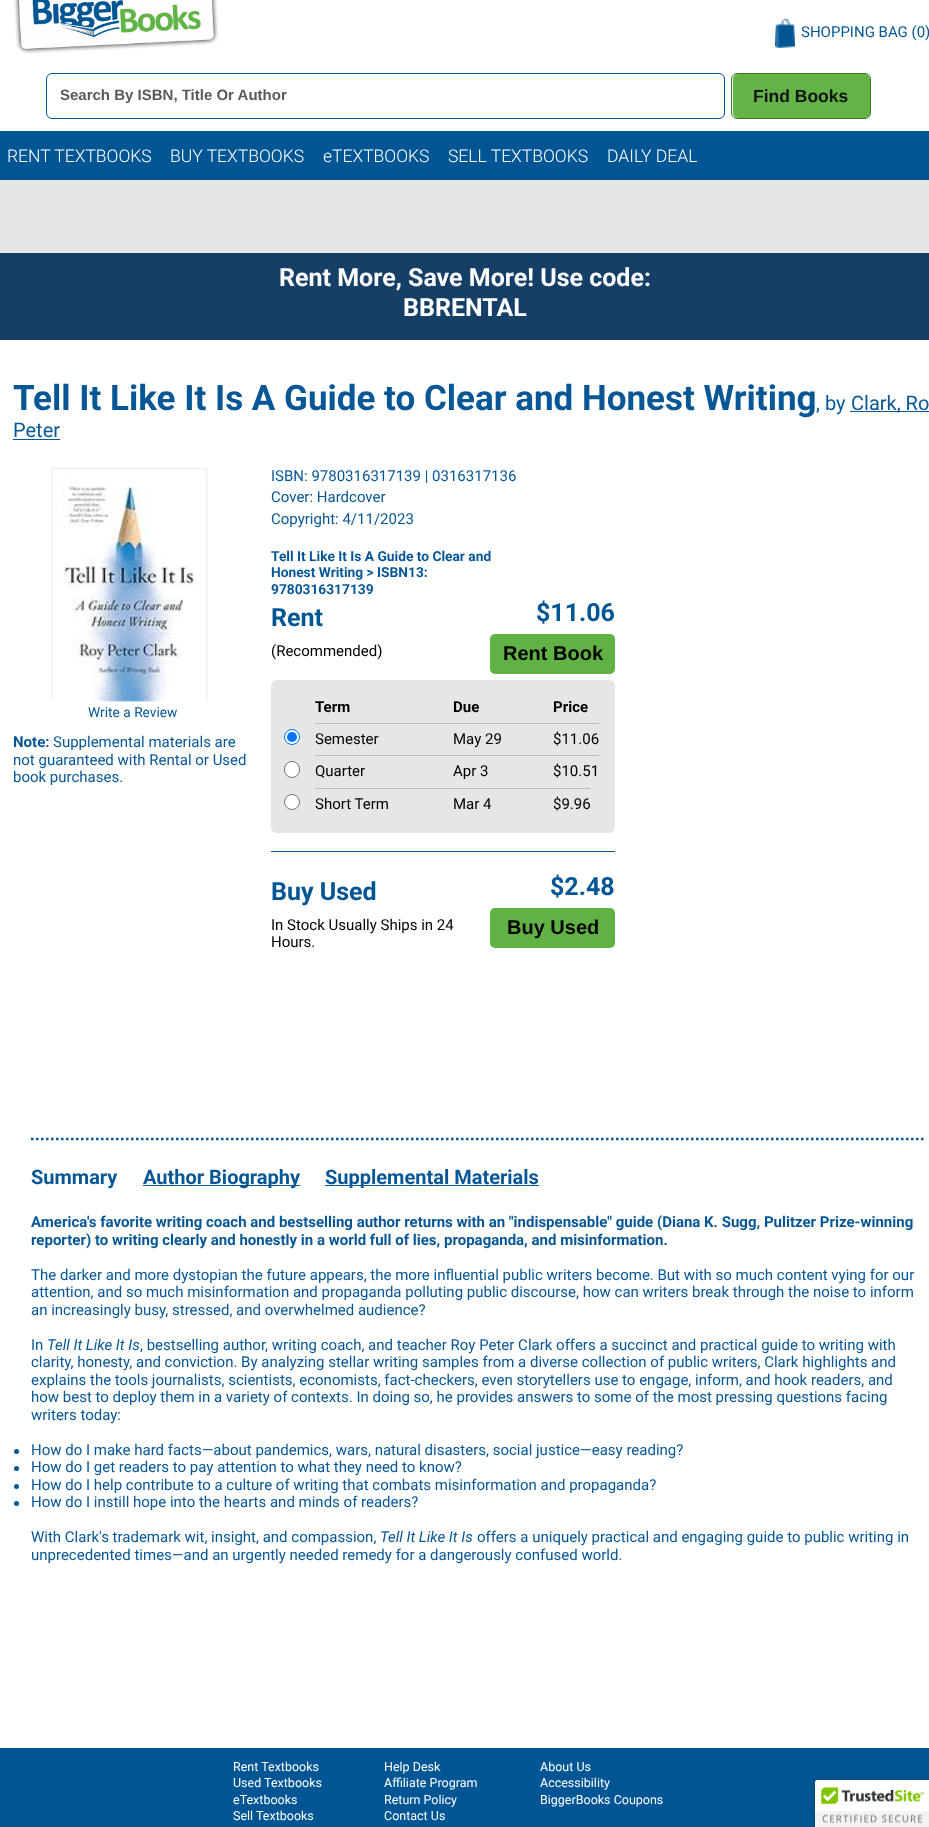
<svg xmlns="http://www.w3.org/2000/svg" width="929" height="1827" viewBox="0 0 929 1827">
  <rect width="100%" height="100%" fill="#fff"/>
  <image x="14" y="0" width="204" height="54" href="img/1.png"/>
  <image x="775" y="19" width="20" height="29" href="img/2.png"/>
  <rect x="46.5" y="73.5" width="678" height="45" rx="5.5" fill="none" stroke="#005694"/>
  <rect x="733" y="74" width="137" height="44" rx="5" fill="#62b446"/>
  <rect x="731.5" y="73.5" width="139" height="45" rx="5.5" fill="none" stroke="#3a7c24"/>
  <path d="M0 131h929v49H0z" fill="#005694"/>
  <path d="M0 180h929v73H0z" fill="#e6e6e6"/>
  <path d="M0 253h929v87H0z" fill="#163f68"/>
  <path d="M850 411h79v1H850z" fill="#075796"/>
  <path d="M13 439h47v1H13z" fill="#075796"/>
  <image x="51" y="467" width="157" height="235" href="img/3.png"/>
  <rect x="490" y="634" width="125" height="40" rx="5" fill="#60b245"/>
  <rect x="271" y="680" width="344" height="153" rx="6" fill="#e6e6e6"/>
  <circle cx="292" cy="737" r="7.5" fill="#fff" stroke="#0075ff"/>
  <circle cx="292" cy="737" r="5" fill="#0075ff"/>
  <path d="M315 723h284v1H315z" fill="#bababa"/>
  <rect x="284.5" y="761.5" width="15" height="16" rx="7.5" fill="#fff" stroke="#767676"/>
  <path d="M315 755h284v1H315z" fill="#bababa"/>
  <circle cx="292" cy="802" r="7.5" fill="#fff" stroke="#767676"/>
  <path d="M315 788h275v1H315z" fill="#bababa"/>
  <path d="M271 851h344v1H271z" fill="#005694"/>
  <rect x="490" y="908" width="125" height="40" rx="5" fill="#60b245"/>
  <path d="M31 1139H924" fill="none" stroke="#085796" stroke-width="2.5" stroke-dasharray="2.5 2.5"/>
  <path d="M143 1185h157v1H143z" fill="#075796"/>
  <path d="M325 1185h214v1H325z" fill="#075796"/>
  <circle cx="16.5" cy="1451.5" r="2.5" fill="#075796"/>
  <circle cx="16.5" cy="1468.5" r="2.5" fill="#075796"/>
  <circle cx="16.5" cy="1486.5" r="2.5" fill="#075796"/>
  <circle cx="16.5" cy="1503.5" r="2.5" fill="#075796"/>
  <path d="M0 1748h929v79H0z" fill="#005694"/>
  <rect x="815" y="1780" width="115" height="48" rx="2.5" fill="#00000033" filter="blur(3px)"/>
  <path d="M817.5 1780H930V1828H815V1782.5C815 1781 816 1780 817.5 1780Z" fill="#fff"/>
  <image x="815" y="1780" width="114" height="47" href="img/4.png"/>
  <text x="801" y="37" font-family="Roboto" font-size="15" fill="#075796">SHOPPING BAG (0)</text>
  <text x="60" y="100" font-family="Liberation Sans" font-size="15" font-weight="bold" fill="#595959">Search By ISBN, Title Or Author</text>
  <text x="753" y="102" font-family="Liberation Sans" font-size="17.5" font-weight="bold" fill="#141414">Find Books</text>
  <g font-family="Roboto" font-size="17.5" font-weight="300" fill="#fff">
    <text x="7" y="162">RENT TEXTBOOKS</text>
    <text x="170" y="162">BUY TEXTBOOKS</text>
    <text x="323" y="162">eTEXTBOOKS</text>
    <text x="448" y="162">SELL TEXTBOOKS</text>
    <text x="607" y="162">DAILY DEAL</text>
  </g>
  <g font-family="Roboto" font-size="25" font-weight="bold" fill="#fff">
    <text x="279" y="286">Rent More, Save More! Use code:</text>
    <text x="403" y="316">BBRENTAL</text>
  </g>
  <text x="13" y="410" font-family="Roboto" font-size="35" font-weight="bold" fill="#075796">Tell It Like It Is A Guide to Clear and Honest Writing</text>
  <g font-family="Roboto" font-size="20" fill="#075796">
    <text x="816" y="410">, by</text>
    <text x="851" y="410">Clark, Ro</text>
    <text x="13" y="437">Peter</text>
  </g>
  <text x="88" y="717" font-family="Roboto" font-size="13.75" fill="#075796">Write a Review</text>
  <text x="13" y="747" font-family="Roboto" font-size="15" font-weight="bold" fill="#075796">Note:</text>
  <g font-family="Roboto" font-size="15" fill="#075796">
    <text x="53" y="747">Supplemental materials are</text>
    <text x="13" y="765">not guaranteed with Rental or Used</text>
    <text x="13" y="782">book purchases.</text>
    <text x="271" y="481">ISBN: 9780316317139 | 0316317136</text>
    <text x="271" y="502">Cover: Hardcover</text>
    <text x="271" y="524">Copyright: 4/11/2023</text>
  </g>
  <g font-family="Roboto" font-size="13.75" font-weight="bold" fill="#075796">
    <text x="271" y="561">Tell It Like It Is A Guide to Clear and</text>
    <text x="271" y="577">Honest Writing &gt; ISBN13:</text>
    <text x="271" y="594">9780316317139</text>
  </g>
  <text x="271" y="626" font-family="Roboto" font-size="25" font-weight="bold" fill="#005694">Rent</text>
  <text x="271" y="656" font-family="Roboto" font-size="15" fill="#000">(Recommended)</text>
  <text x="536" y="621" font-family="Roboto" font-size="25" font-weight="bold" fill="#005694">$11.06</text>
  <text x="503" y="660" font-family="Liberation Sans" font-size="20" font-weight="bold" fill="#000">Rent Book</text>
  <g font-family="Roboto" font-size="15" font-weight="bold" fill="#000">
    <text x="315" y="712">Term</text>
    <text x="453" y="712">Due</text>
    <text x="553" y="712">Price</text>
  </g>
  <g font-family="Roboto" font-size="15" fill="#000">
    <text x="315" y="744">Semester</text>
    <text x="453" y="744">May 29</text>
    <text x="553" y="744">$11.06</text>
    <text x="315" y="776">Quarter</text>
    <text x="453" y="776">Apr 3</text>
    <text x="553" y="776">$10.51</text>
    <text x="315" y="809">Short Term</text>
    <text x="453" y="809">Mar 4</text>
    <text x="553" y="809">$9.96</text>
  </g>
  <text x="271" y="900" font-family="Roboto" font-size="25" font-weight="bold" fill="#005694">Buy Used</text>
  <g font-family="Roboto" font-size="15" fill="#000">
    <text x="271" y="930">In Stock Usually Ships in 24</text>
    <text x="271" y="947">Hours.</text>
  </g>
  <text x="550" y="895" font-family="Roboto" font-size="25" font-weight="bold" fill="#005694">$2.48</text>
  <text x="507" y="934" font-family="Liberation Sans" font-size="20" font-weight="bold" fill="#000">Buy Used</text>
  <g font-family="Roboto" font-size="20" font-weight="bold" fill="#075796">
    <text x="31" y="1184">Summary</text>
    <text x="143" y="1184">Author Biography</text>
    <text x="325" y="1184">Supplemental Materials</text>
  </g>
  <g font-family="Roboto" font-size="15" font-weight="bold" fill="#075796">
    <text x="31" y="1227">America's favorite writing coach and bestselling author returns with an "indispensable" guide (Diana K. Sugg, Pulitzer Prize-winning</text>
    <text x="31" y="1245">reporter) to writing clearly and honestly in a world full of lies, propaganda, and misinformation.</text>
  </g>
  <g font-family="Roboto" font-size="15" fill="#075796">
    <text x="31" y="1280">The darker and more dystopian the future appears, the more influential public writers become. But with so much content vying for our</text>
    <text x="31" y="1297">attention, and so much misinformation and propaganda polluting public discourse, how can writers break through the noise to inform</text>
    <text x="31" y="1315">an increasingly busy, stressed, and overwhelmed audience?</text>
    <text x="31" y="1350">In</text>
  </g>
  <text x="47" y="1350" font-family="Roboto" font-size="15" font-style="italic" fill="#075796">Tell It Like It Is</text>
  <g font-family="Roboto" font-size="15" fill="#075796">
    <text x="140" y="1350">, bestselling author, writing coach, and teacher Roy Peter Clark offers a succinct and practical guide to writing with</text>
    <text x="31" y="1367">clarity, honesty, and conviction. By analyzing stellar writing samples from a diverse collection of public writers, Clark highlights and</text>
    <text x="31" y="1385">explains the tools journalists, scientists, economists, fact-checkers, even storytellers use to engage, inform, and hook readers, and</text>
    <text x="31" y="1402">how best to deploy them in a variety of contexts. In doing so, he provides answers to some of the most pressing questions facing</text>
    <text x="31" y="1420">writers today:</text>
    <text x="31" y="1455">How do I make hard facts—about pandemics, wars, natural disasters, social justice—easy reading?</text>
    <text x="31" y="1472">How do I get readers to pay attention to what they need to know?</text>
    <text x="31" y="1490">How do I help contribute to a culture of writing that combats misinformation and propaganda?</text>
    <text x="31" y="1507">How do I instill hope into the hearts and minds of readers?</text>
    <text x="31" y="1542">With Clark's trademark wit, insight, and compassion,</text>
  </g>
  <text x="380" y="1542" font-family="Roboto" font-size="15" font-style="italic" fill="#075796">Tell It Like It Is</text>
  <g font-family="Roboto" font-size="15" fill="#075796">
    <text x="477" y="1542">offers a uniquely practical and engaging guide to public writing in</text>
    <text x="31" y="1560">unprecedented times—and an urgently needed remedy for a dangerously confused world.</text>
  </g>
  <g font-family="Roboto" font-size="12.5" fill="#fff">
    <text x="233" y="1771">Rent Textbooks</text>
    <text x="233" y="1787">Used Textbooks</text>
    <text x="233" y="1804">eTextbooks</text>
    <text x="233" y="1820">Sell Textbooks</text>
    <text x="384" y="1771">Help Desk</text>
    <text x="384" y="1787">Affiliate Program</text>
    <text x="384" y="1804">Return Policy</text>
    <text x="384" y="1820">Contact Us</text>
    <text x="540" y="1771">About Us</text>
    <text x="540" y="1787">Accessibility</text>
    <text x="540" y="1804">BiggerBooks Coupons</text>
  </g>
</svg>
